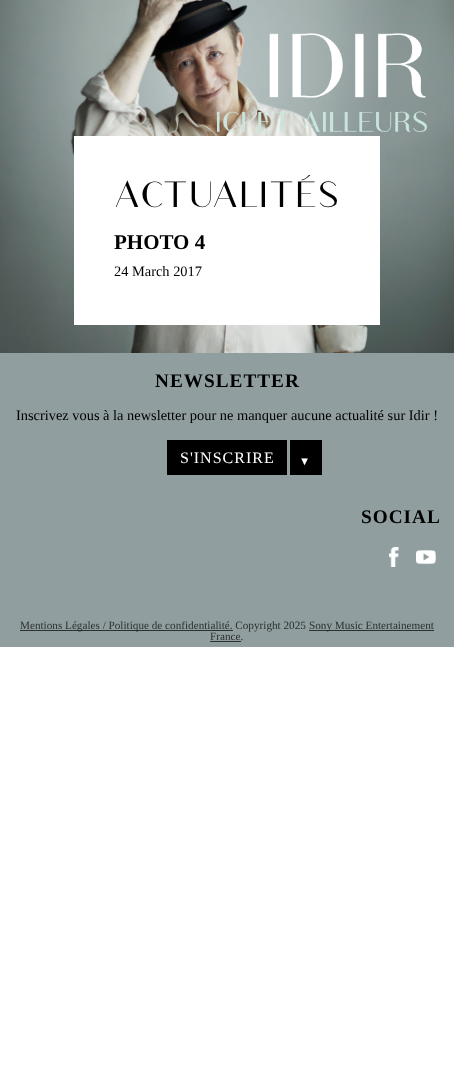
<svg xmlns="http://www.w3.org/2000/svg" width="454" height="1090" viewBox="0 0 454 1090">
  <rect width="100%" height="100%" fill="#fff"/>
  <image x="0" y="0" width="454" height="353" href="img/2.png"/>
  <image x="217" y="33" width="210" height="99" href="img/1.png"/>
  <path d="M74 136h306v189H74z" fill="#fff"/>
  <path d="M0 353h454v294H0z" fill="#909ea0"/>
  <path d="M167 440h120v35H167z" fill="#000"/>
  <path d="M290 440h32v35H290z" fill="#000"/>
  <image x="389" y="547" width="10" height="20" href="img/3.png"/>
  <image x="416" y="550" width="20" height="14" href="img/4.png"/>
  <path d="M20 630h213v1H20z" fill="#2b2f30"/>
  <path d="M309 630h125v1H309z" fill="#2b2f30"/>
  <path d="M210 641h31v1H210z" fill="#2b2f30"/>
  <text x="114" y="207" font-family="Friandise" font-size="40" font-weight="500" letter-spacing="1" fill="#000">ACTUALITÉS</text>
  <text x="114" y="249" font-family="Liberation Serif" font-size="21" font-weight="bold" fill="#000">PHOTO 4</text>
  <text x="114" y="276" font-family="Liberation Serif" font-size="14.4" fill="#000">24 March 2017</text>
  <text x="155" y="387" font-family="Liberation Serif" font-size="19.25" font-weight="bold" letter-spacing="1" fill="#000">NEWSLETTER</text>
  <text x="16" y="420" font-family="Liberation Serif" font-size="14.4" fill="#000">Inscrivez vous à la newsletter pour ne manquer aucune actualité sur Idir !</text>
  <text x="180" y="463" font-family="Liberation Serif" font-size="16" letter-spacing="1" fill="#fff">S'INSCRIRE</text>
  <text x="299" y="465" font-family="Liberation Serif" font-size="11.2" letter-spacing="1" fill="#fff">▼</text>
  <text x="361" y="523" font-family="Liberation Serif" font-size="19.25" font-weight="bold" letter-spacing="1" fill="#000">SOCIAL</text>
  <g font-family="Liberation Serif" font-size="11.2" fill="#2b2f30">
    <text x="20" y="629">Mentions Légales / Politique de confidentialité. Copyright 2025</text>
    <text x="309" y="629">Sony Music Entertainement</text>
    <text x="210" y="640">France.</text>
  </g>
</svg>
